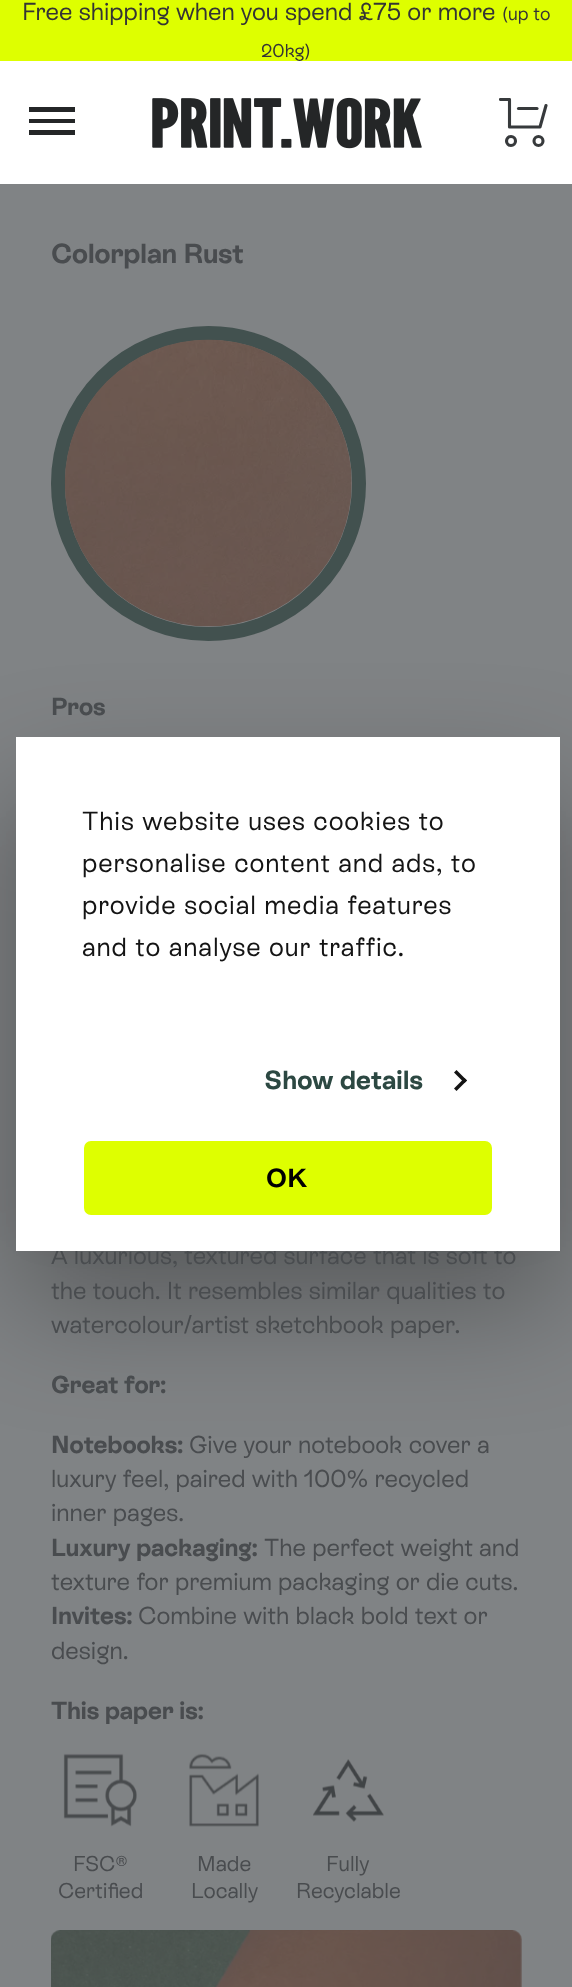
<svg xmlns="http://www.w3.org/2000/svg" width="572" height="1987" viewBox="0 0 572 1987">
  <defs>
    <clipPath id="clip1"><path d="M499 98h49v49H499z"/></clipPath>
  </defs>
  <rect width="100%" height="100%" fill="#808385"/>
  <path d="M0 61h572v123H0z" fill="#fff"/>
  <path d="M0 0h572v61H0z" fill="#deff00"/>
  <path d="M29 107H75V112H29ZM29 119H75V123H29ZM29 130H75V135H29Z" fill="#242627"/>
  <image x="152" y="97" width="270" height="52" href="img/1.png"/>
  <g clip-path="url(#clip1)">
    <path d="M500.5 99.5H509.5V127H540L546 105.5" fill="none" stroke="#373a3c" stroke-width="3.1" stroke-linecap="round" stroke-linejoin="round"/>
  </g>
  <circle cx="511" cy="141" r="4.5" fill="none" stroke="#373a3c" stroke-width="3.1"/>
  <circle cx="538.5" cy="141" r="4.5" fill="none" stroke="#373a3c" stroke-width="3.1"/>
  <path d="M518.5 108.5H537" fill="none" stroke="#373a3c" stroke-width="3.1" stroke-linecap="round" stroke-linejoin="round"/>
  <circle cx="208.5" cy="483.5" r="150.5" fill="none" stroke="#42514f" stroke-width="14"/>
  <image x="64" y="339" width="288" height="288" href="img/2.png"/>
  <image x="63" y="1753" width="74" height="74" href="img/3.png"/>
  <image x="189" y="1753" width="70" height="74" href="img/4.png"/>
  <image x="313" y="1759" width="71" height="63" href="img/5.png"/>
  <image x="51" y="1930" width="471" height="57" href="img/6.png"/>
  <rect x="33" y="831" width="506" height="396" rx="4" fill="#0000001a" filter="blur(22px)"/>
  <path d="M16 793h544v514H16z" fill="#0000004d" filter="blur(59.5px)"/>
  <text x="22" y="20" font-family="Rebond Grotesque" font-size="24.5" fill="#343434">Free shipping when you spend £75 or more</text>
  <g font-family="Rebond Grotesque" font-size="18.5" fill="#343434">
    <text x="502" y="20">(up to</text>
    <text x="261" y="57">20kg)</text>
  </g>
  <text x="51" y="263" font-family="Rebond Grotesque" font-size="27.5" font-weight="bold" fill="#494c4f">Colorplan Rust</text>
  <text x="51" y="715" font-family="Rebond Grotesque" font-size="24.5" font-weight="bold" fill="#494c4f">Pros</text>
  <g font-family="Rebond Grotesque" font-size="24.5" fill="#494c4f">
    <text x="51" y="1264">A luxurious, textured surface that is soft to</text>
    <text x="51" y="1299">the touch. It resembles similar qualities to</text>
    <text x="51" y="1333">watercolour/artist sketchbook paper.</text>
  </g>
  <g font-family="Rebond Grotesque" font-size="24.5" font-weight="bold" fill="#494c4f">
    <text x="51" y="1393">Great for:</text>
    <text x="51" y="1453">Notebooks:</text>
  </g>
  <g font-family="Rebond Grotesque" font-size="24.5" fill="#494c4f">
    <text x="189" y="1453">Give your notebook cover a</text>
    <text x="51" y="1487">luxury feel, paired with 100% recycled</text>
    <text x="51" y="1521">inner pages.</text>
  </g>
  <text x="51" y="1556" font-family="Rebond Grotesque" font-size="24.5" font-weight="bold" fill="#494c4f">Luxury packaging:</text>
  <g font-family="Rebond Grotesque" font-size="24.5" fill="#494c4f">
    <text x="264" y="1556">The perfect weight and</text>
    <text x="51" y="1590">texture for premium packaging or die cuts.</text>
  </g>
  <text x="51" y="1624" font-family="Rebond Grotesque" font-size="24.5" font-weight="bold" fill="#494c4f">Invites:</text>
  <g font-family="Rebond Grotesque" font-size="24.5" fill="#494c4f">
    <text x="138" y="1624">Combine with black bold text or</text>
    <text x="51" y="1659">design.</text>
  </g>
  <text x="51" y="1719" font-family="Rebond Grotesque" font-size="24.5" font-weight="bold" fill="#494c4f">This paper is:</text>
  <g font-family="Rebond Grotesque" font-size="21.5" fill="#494c4f">
    <text x="73" y="1871">FSC®</text>
    <text x="58" y="1898">Certified</text>
    <text x="197" y="1871">Made</text>
    <text x="191" y="1898">Locally</text>
    <text x="326" y="1871">Fully</text>
    <text x="296" y="1898">Recyclable</text>
  </g>
  <path d="M16 737h544v514H16z" fill="#fff"/>
  <g font-family="Rebond Grotesque" font-size="26.25" letter-spacing="0.9" fill="#141414">
    <text x="82" y="830">This website uses cookies to</text>
    <text x="82" y="872">personalise content and ads, to</text>
    <text x="82" y="914">provide social media features</text>
    <text x="82" y="956">and to analyse our traffic.</text>
  </g>
  <text x="264" y="1089" font-family="Rebond Grotesque" font-size="26.25" font-weight="bold" letter-spacing="0.25" fill="#2c4842">Show details</text>
  <path d="M456.5 1070L467 1080.5L464.5 1083L454 1072.5Z" fill="#141414"/>
  <path d="M464.5 1078L467 1080.5L456.5 1091L454 1088.5Z" fill="#141414"/>
  <rect x="86" y="1143" width="404" height="70" rx="5" fill="#deff00" stroke="#deff00" stroke-width="4"/>
  <text x="266" y="1187" font-family="Rebond Grotesque" font-size="26.25" font-weight="bold" letter-spacing="0.25" fill="#000">OK</text>
</svg>
